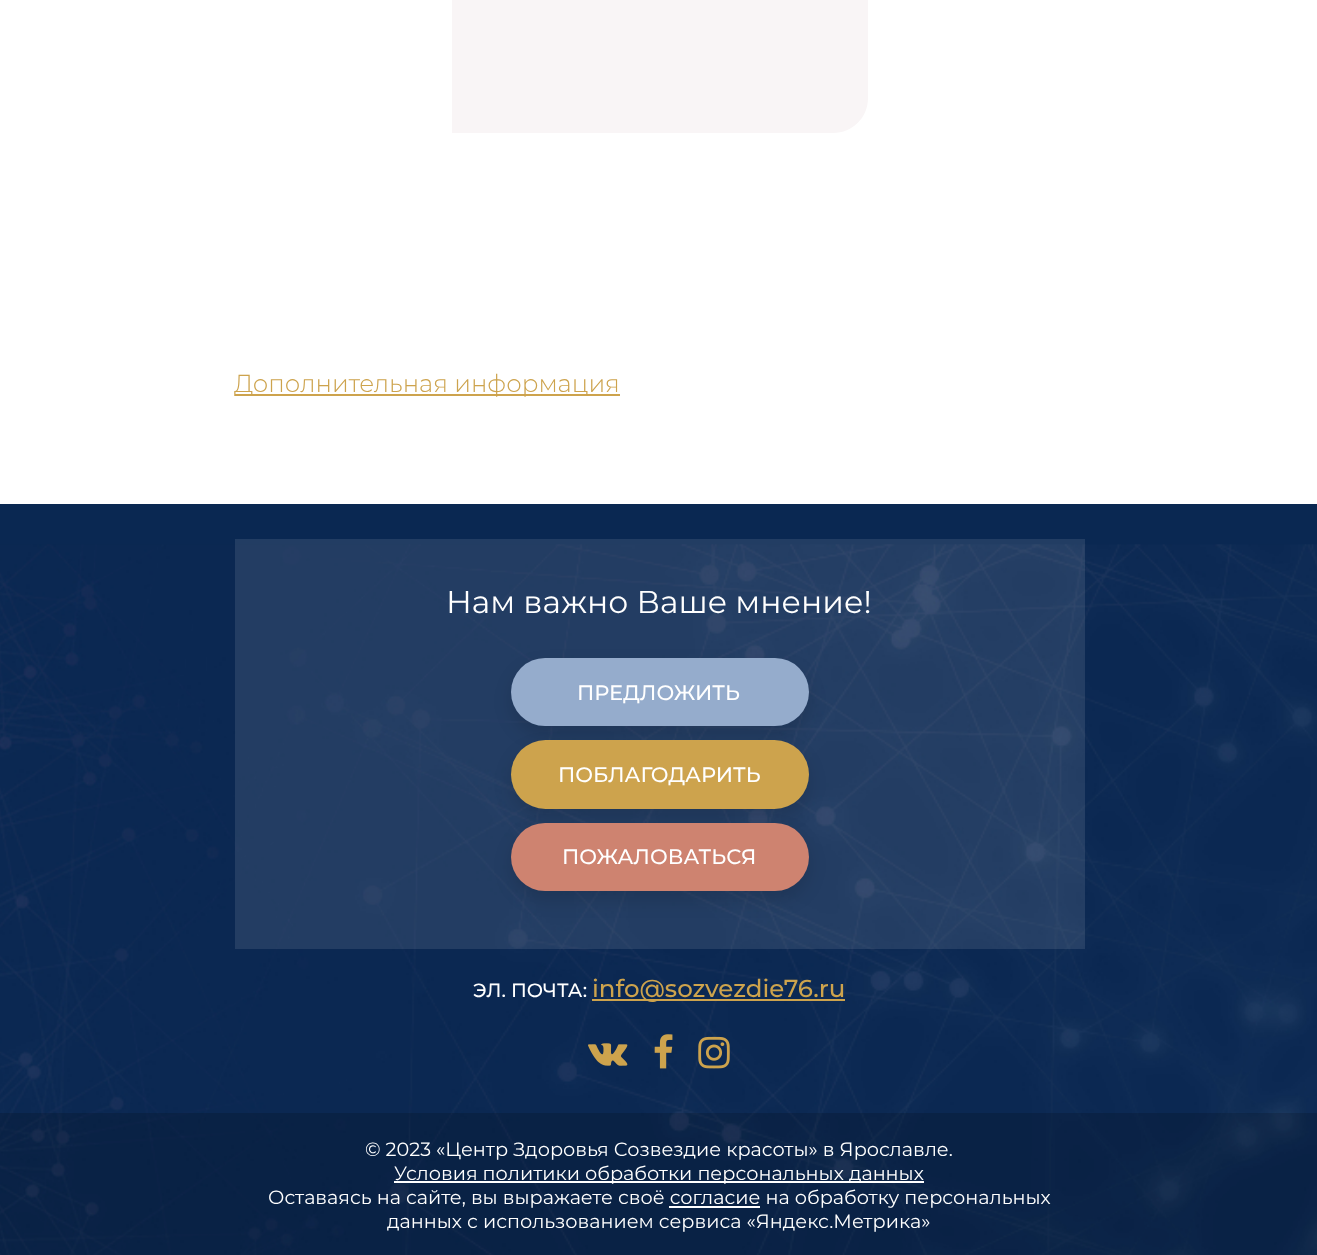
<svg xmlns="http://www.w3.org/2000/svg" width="1317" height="1255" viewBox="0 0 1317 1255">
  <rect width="100%" height="100%" fill="#fff"/>
  <path d="M487-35H833C852.5-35 868-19.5 868 0V98C868 117.5 852.5 133 833 133H452V0C452-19.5 467.5-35 487-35Z" fill="#f9f5f6"/>
  <path d="M235 394h385v2H235z" fill="#cda34d"/>
  <path d="M0 504h1317v41H0z" fill="#0a2852"/>
  <image x="0" y="544" width="1317" height="711" href="img/1.png"/>
  <path d="M235 539h850v410H235z" fill="#ffffff1a"/>
  <rect x="511" y="667" width="298" height="68" rx="34" fill="#0000001f" filter="blur(9px)"/>
  <rect x="511" y="658" width="298" height="68" rx="34" fill="#95accc"/>
  <rect x="511" y="749" width="298" height="68" rx="34" fill="#0000001f" filter="blur(9px)"/>
  <rect x="511" y="740" width="298" height="69" rx="34.5" fill="#cda34d"/>
  <rect x="511" y="831" width="298" height="69" rx="34.5" fill="#0000001f" filter="blur(9px)"/>
  <rect x="511" y="823" width="298" height="68" rx="34" fill="#ce8370"/>
  <path d="M592 999h253v2H592z" fill="#cda34d"/>
  <image x="588" y="1043" width="40" height="23" href="img/2.png"/>
  <image x="654" y="1034" width="19" height="35" href="img/3.png"/>
  <image x="698" y="1036" width="32" height="33" href="img/4.png"/>
  <path d="M0 1113h1317v142H0z" fill="#00000026"/>
  <path d="M394 1181h530v2H394z" fill="#fff"/>
  <path d="M669 1206h91v2H669z" fill="#fff"/>
  <text x="234" y="392" font-family="Montserrat" font-size="24.5" font-weight="300" fill="#cda34d">Дополнительная информация</text>
  <text x="446" y="613" font-family="Montserrat" font-size="31.5" fill="#fff">Нам важно Ваше мнение!</text>
  <g font-family="Montserrat" font-size="21" font-weight="500" fill="#fff">
    <text x="577" y="700">ПРЕДЛОЖИТЬ</text>
    <text x="558" y="782">ПОБЛАГОДАРИТЬ</text>
    <text x="562" y="864">ПОЖАЛОВАТЬСЯ</text>
  </g>
  <text x="473" y="997" font-family="Montserrat" font-size="19.25" font-weight="500" fill="#fff">ЭЛ. ПОЧТА:</text>
  <text x="592" y="997" font-family="Montserrat" font-size="24.5" font-weight="500" fill="#cda34d">info@sozvezdie76.ru</text>
  <g font-family="Montserrat" font-size="19.25" fill="#fff">
    <text x="365" y="1156">© 2023 «Центр Здоровья Созвездие красоты» в Ярославле.</text>
    <text x="394" y="1180">Условия политики обработки персональных данных</text>
    <text x="268" y="1204">Оставаясь на сайте, вы выражаете своё согласие на обработку персональных</text>
    <text x="387" y="1228">данных с использованием сервиса «Яндекс.Метрика»</text>
  </g>
</svg>
